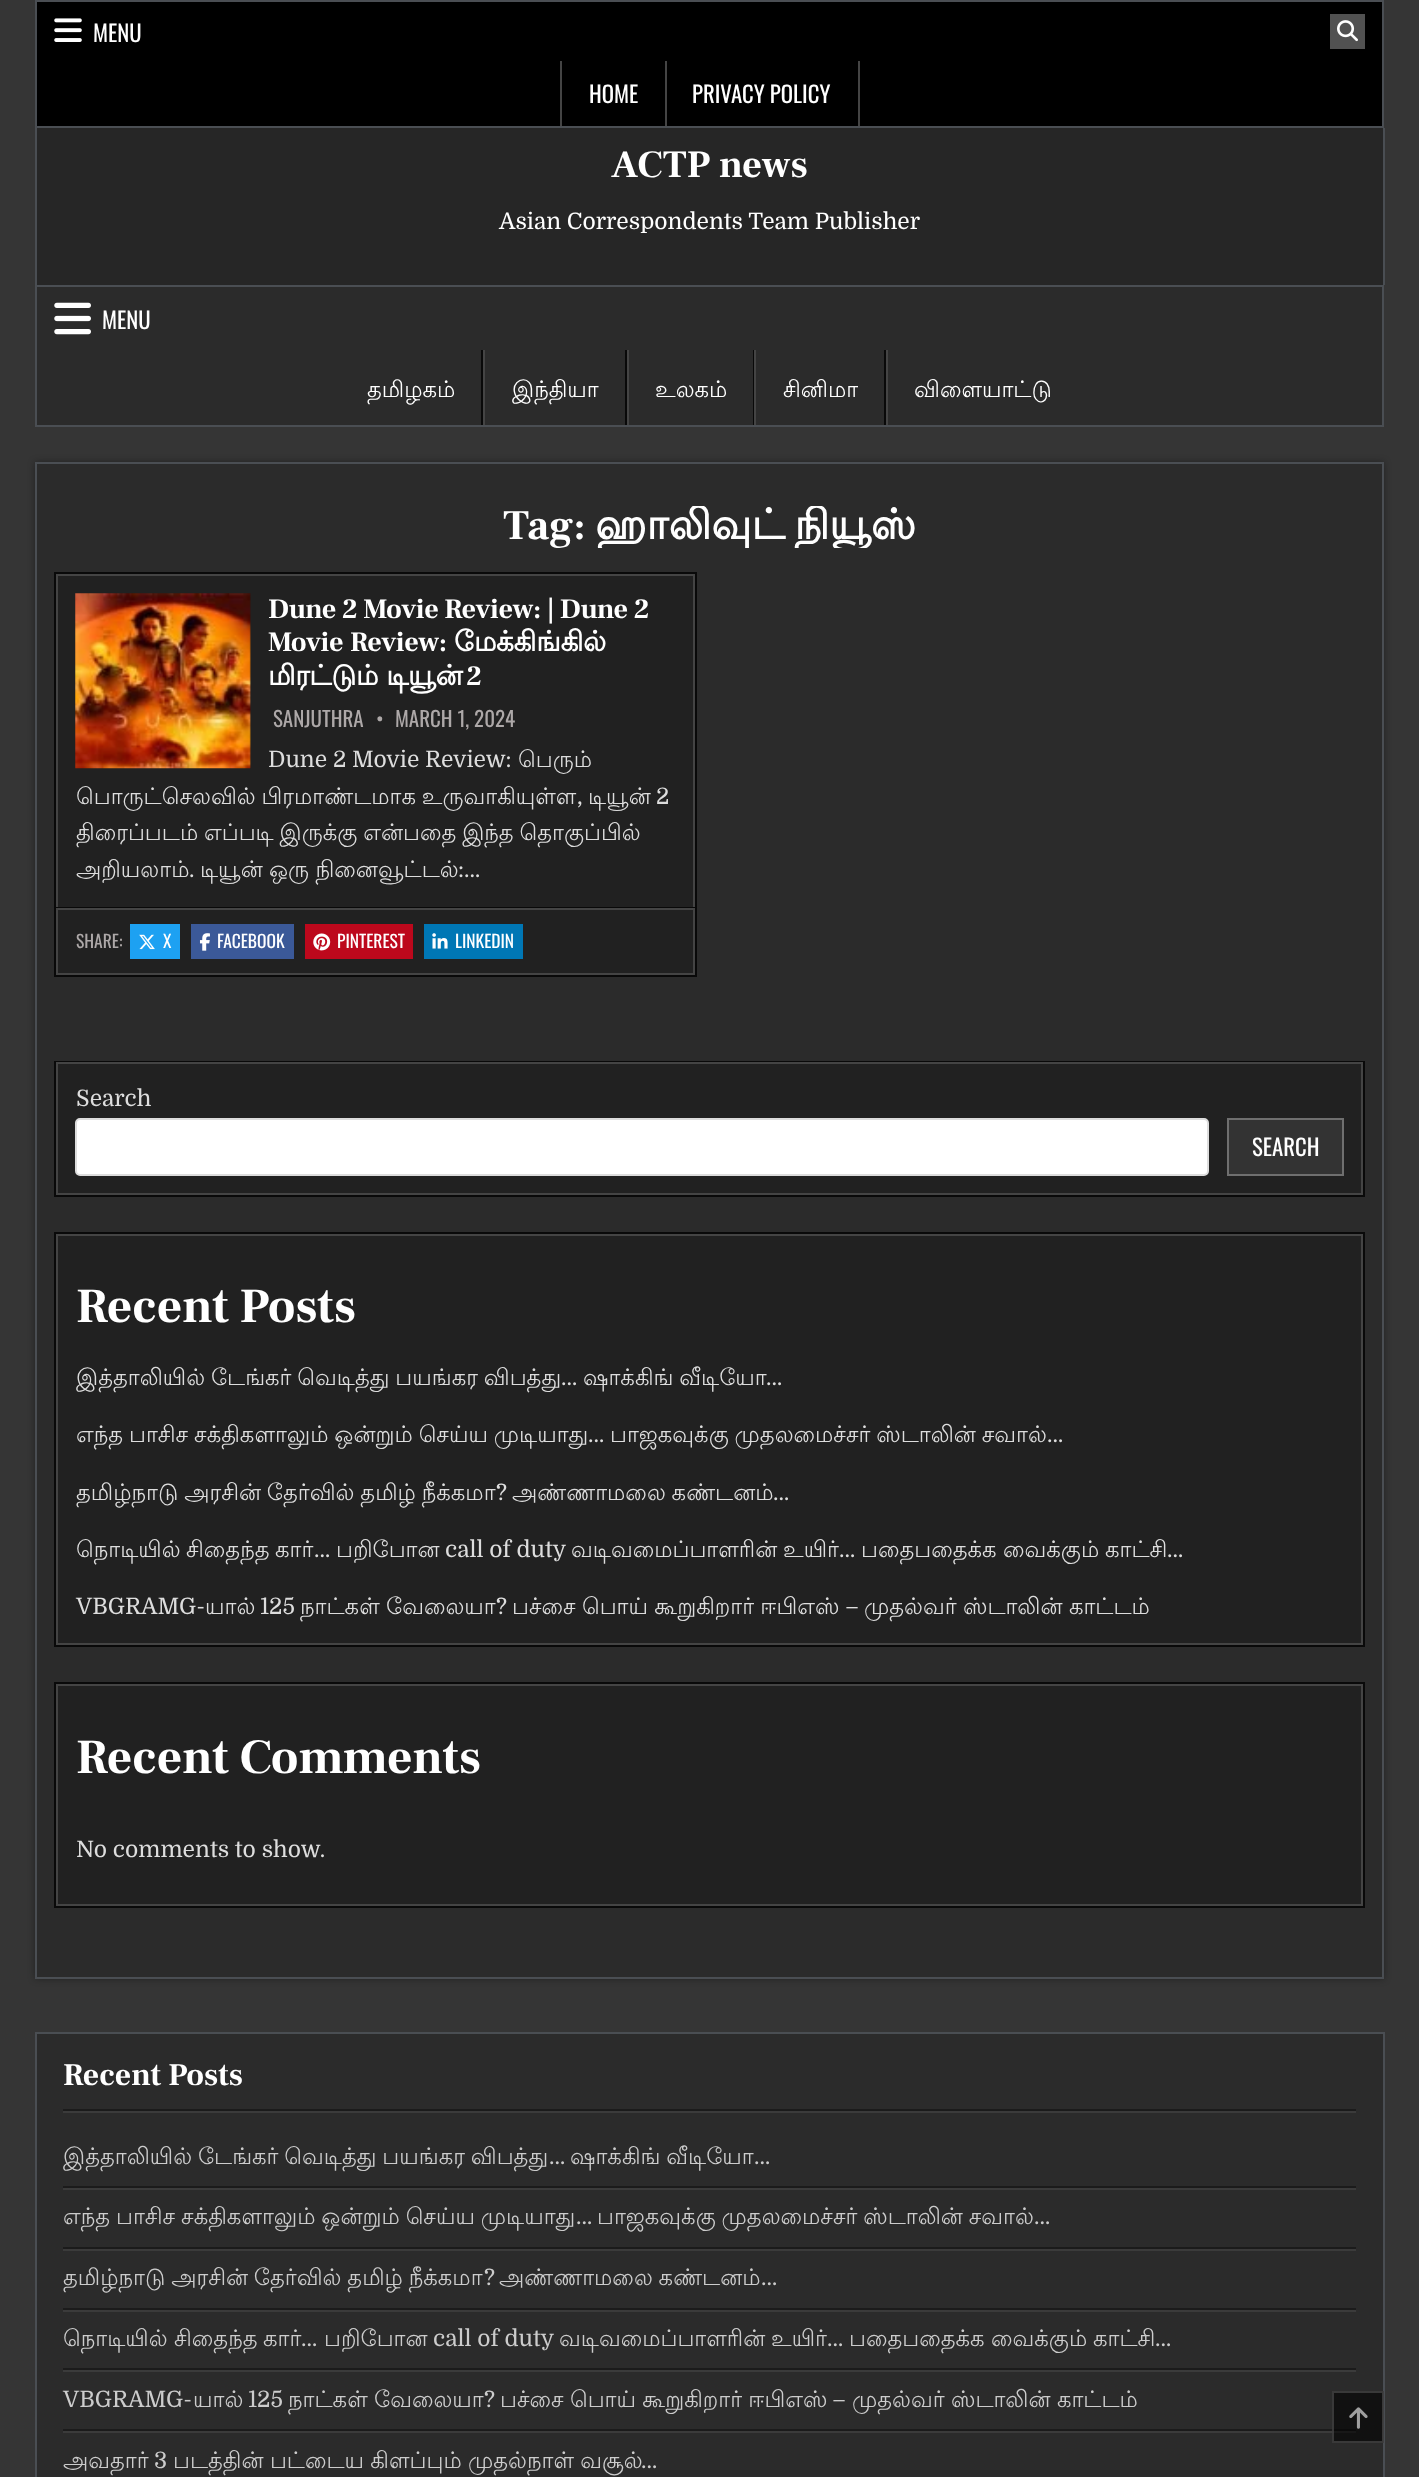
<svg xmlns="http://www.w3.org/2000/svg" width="1419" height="2477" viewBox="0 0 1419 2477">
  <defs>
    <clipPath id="clip1"><path d="M61 506h1297v42H61z"/></clipPath>
  </defs>
  <rect width="100%" height="100%" fill="#353535"/>
  <path d="M36 1h1347v126H36z" fill="#000" stroke="#4a4e53" stroke-width="2"/>
  <image x="54" y="18" width="28" height="24" href="img/1.png"/>
  <path d="M1330 14h35v35H1330z" fill="#515151"/>
  <image x="1337" y="20" width="21" height="22" href="img/2.png"/>
  <path d="M665 61h2v65H665z" fill="#444"/>
  <path d="M560 61h2v65H560z" fill="#444"/>
  <path d="M858 61h2v65H858z" fill="#444"/>
  <path d="M37 128h1346v157H37z" fill="#262626"/>
  <path d="M1383 128h2v157H1383z" fill="#4a4e53"/>
  <path d="M35 128h2v157H35z" fill="#4a4e53"/>
  <path d="M36 286h1347v140H36z" fill="#2b2b2b" stroke="#4a4e53" stroke-width="2"/>
  <image x="54" y="302" width="37" height="33" href="img/3.png"/>
  <path d="M481 350h2v75H481z" fill="#090909"/>
  <path d="M625 350h2v75H625z" fill="#090909"/>
  <path d="M483 350h2v75H483z" fill="#444"/>
  <path d="M753 350h1v75H753z" fill="#090909"/>
  <path d="M627 350h2v75H627z" fill="#444"/>
  <path d="M884 350h2v75H884z" fill="#090909"/>
  <path d="M754 350h2v75H754z" fill="#444"/>
  <path d="M886 350h2v75H886z" fill="#444"/>
  <path d="M35 462h1349v1517H35z" fill="#00000059" filter="blur(3.5px)"/>
  <path d="M36 463h1347v1515H36z" fill="#2b2b2b" stroke="#4a4e53" stroke-width="2"/>
  <path d="M58 576h635v397H58z" fill="#212121"/>
  <path d="M55 573h641v403H55z" fill="none" stroke="#090909" stroke-width="2"/>
  <path d="M57 575h637v399H57z" fill="none" stroke="#444" stroke-width="2"/>
  <image x="75" y="593" width="176" height="176" href="img/4.png"/>
  <path d="M56 907h639v1H56z" fill="#090909"/>
  <path d="M56 908h639v2H56z" fill="#444"/>
  <path d="M130 924h50v35H130z" fill="#1da1f2"/>
  <image x="139" y="934" width="16" height="16" href="img/5.png"/>
  <path d="M191 924h103v35H191z" fill="#3b5998"/>
  <image x="199" y="933" width="11" height="18" href="img/6.png"/>
  <path d="M305 924h108v35H305z" fill="#bd081c"/>
  <image x="313" y="933" width="18" height="18" href="img/7.png"/>
  <path d="M424 924h99v35H424z" fill="#0077b5"/>
  <image x="432" y="933" width="16" height="16" href="img/8.png"/>
  <path d="M58 1064h1303v129H58z" fill="#212121"/>
  <path d="M55 1062h1309v134H55z" fill="none" stroke="#090909" stroke-width="2"/>
  <path d="M57 1063h1305v131H57z" fill="none" stroke="#444" stroke-width="2"/>
  <rect x="76" y="1119" width="1132" height="56" rx="4" fill="#fff" stroke="#ddd" stroke-width="2"/>
  <path d="M1228 1119h115v56H1228z" fill="#333" stroke="#6f6f6f" stroke-width="2"/>
  <path d="M58 1236h1303v407H58z" fill="#212121"/>
  <path d="M55 1233h1309v413H55z" fill="none" stroke="#090909" stroke-width="2"/>
  <path d="M57 1235h1305v409H57z" fill="none" stroke="#444" stroke-width="2"/>
  <path d="M58 1686h1303v218H58z" fill="#212121"/>
  <path d="M55 1683h1309v224H55z" fill="none" stroke="#090909" stroke-width="2"/>
  <path d="M57 1685h1305v220H57z" fill="none" stroke="#444" stroke-width="2"/>
  <path d="M37 2034h1346v443H37z" fill="#2b2b2b"/>
  <path d="M1332 2391h51v52H1332z" fill="#111"/>
  <path d="M35 2032h1349v2H35z" fill="#4a4e53"/>
  <path d="M1383 2032h2v445H1383z" fill="#4a4e53"/>
  <path d="M1383 2391h1v52H1383z" fill="#1e1f21"/>
  <path d="M35 2032h2v445H35z" fill="#4a4e53"/>
  <path d="M63 2111h1293v2H63z" fill="#3b3b3b"/>
  <path d="M63 2109h1293v2H63z" fill="#1b1b1b"/>
  <path d="M63 2186h1293v2H63z" fill="#1b1b1b"/>
  <path d="M63 2188h1293v2H63z" fill="#3b3b3b"/>
  <path d="M63 2247h1293v2H63z" fill="#1b1b1b"/>
  <path d="M63 2249h1293v2H63z" fill="#3b3b3b"/>
  <path d="M63 2308h1293v2H63z" fill="#1b1b1b"/>
  <path d="M63 2310h1293v2H63z" fill="#3b3b3b"/>
  <path d="M63 2368h1293v2H63z" fill="#1b1b1b"/>
  <path d="M63 2370h1293v2H63z" fill="#3b3b3b"/>
  <path d="M63 2429h1269v2H63z" fill="#1b1b1b"/>
  <path d="M1332 2429h24v2H1332z" fill="#0b0b0b"/>
  <path d="M63 2431h1269v2H63z" fill="#3b3b3b"/>
  <path d="M1332 2431h24v2H1332z" fill="#181818"/>
  <path d="M1333 2392h50v50H1333z" fill="none" stroke="#55555599" stroke-width="2"/>
  <image x="1349" y="2407" width="19" height="22" href="img/9.png"/>
  <g font-family="Oswald" font-size="22.75" fill="#fff">
    <text x="93" y="42">MENU</text>
    <text x="589" y="103">HOME</text>
    <text x="692" y="103">PRIVACY POLICY</text>
  </g>
  <text x="611" y="177" font-family="Frank Ruhl Libre" font-size="38.5" font-weight="bold" fill="#fff">ACTP news</text>
  <text x="499" y="229" font-family="Domine" font-size="22.75" fill="#fff">Asian Correspondents Team Publisher</text>
  <text x="102" y="329" font-family="Oswald" font-size="22.75" fill="#fff">MENU</text>
  <g font-family="Lohit Tamil" font-size="22.75" fill="#fff">
    <text x="367" y="397">தமிழகம்</text>
    <text x="512" y="397">இந்தியா</text>
    <text x="655" y="397">உலகம்</text>
    <text x="783" y="397">சினிமா</text>
    <text x="914" y="397">விளையாட்டு</text>
  </g>
  <text x="503" y="539" font-family="Frank Ruhl Libre" font-size="42" font-weight="bold" fill="#fff">Tag:</text>
  <g clip-path="url(#clip1)">
    <text x="595" y="539" word-spacing="-3" font-family="Lohit Tamil" font-size="42" font-weight="bold" fill="#fff">ஹாலிவுட் நியூஸ்</text>
  </g>
  <g font-family="Frank Ruhl Libre" font-size="28" font-weight="bold" letter-spacing="-0.35" fill="#fff">
    <text x="268" y="618">Dune 2 Movie Review: | Dune 2</text>
    <text x="268" y="651" word-spacing="1">Movie Review:</text>
  </g>
  <g font-family="Lohit Tamil" font-size="28" font-weight="bold" letter-spacing="-0.35" fill="#fff">
    <text x="454" y="651">மேக்கிங்கில்</text>
    <text x="268" y="685">மிரட்டும் டியூன்</text>
  </g>
  <text x="466" y="685" font-family="Frank Ruhl Libre" font-size="28" font-weight="bold" letter-spacing="-0.35" fill="#fff">2</text>
  <g font-family="Oswald" font-size="21" fill="#ada8a8">
    <text x="273" y="727">SANJUTHRA</text>
    <text x="376" y="727">•</text>
    <text x="395" y="727">MARCH 1, 2024</text>
  </g>
  <text x="268" y="767" font-family="Domine" font-size="22.75" fill="#ddd">Dune 2 Movie Review:</text>
  <g font-family="Lohit Tamil" font-size="22.75" fill="#ddd">
    <text x="518" y="767">பெரும்</text>
    <text x="76" y="804" word-spacing="-1">பொருட்செலவில் பிரமாண்டமாக உருவாகியுள்ள</text>
  </g>
  <text x="577" y="804" font-family="Domine" font-size="22.75" fill="#ddd">,</text>
  <text x="588" y="804" font-family="Lohit Tamil" font-size="22.75" fill="#ddd">டியூன்</text>
  <text x="656" y="804" font-family="Domine" font-size="22.75" fill="#ddd">2</text>
  <g font-family="Lohit Tamil" font-size="22.75" fill="#ddd">
    <text x="76" y="840" word-spacing="-1">திரைப்படம் எப்படி இருக்கு என்பதை இந்த தொகுப்பில்</text>
    <text x="76" y="877">அறியலாம்</text>
  </g>
  <text x="189" y="877" font-family="Domine" font-size="22.75" fill="#ddd">.</text>
  <text x="200" y="877" word-spacing="-0.5" font-family="Lohit Tamil" font-size="22.75" fill="#ddd">டியூன் ஒரு நினைவூட்டல்</text>
  <text x="458" y="877" font-family="Domine" font-size="22.75" fill="#ddd">:…</text>
  <text x="76" y="948" font-family="Oswald" font-size="17.5" fill="#ada8a8">SHARE:</text>
  <g font-family="Oswald" font-size="17.5" fill="#fff">
    <text x="163" y="948">X</text>
    <text x="217" y="948">FACEBOOK</text>
    <text x="337" y="948">PINTEREST</text>
    <text x="455" y="948">LINKEDIN</text>
  </g>
  <text x="76" y="1106" font-family="Domine" font-size="22.75" fill="#ddd">Search</text>
  <text x="1252" y="1156" font-family="Oswald" font-size="22.75" fill="#fff">SEARCH</text>
  <text x="76" y="1322" font-family="Frank Ruhl Libre" font-size="49" font-weight="bold" fill="#fff">Recent Posts</text>
  <text x="76" y="1385" word-spacing="-1" font-family="Lohit Tamil" font-size="22.75" fill="#ddd">இத்தாலியில் டேங்கர் வெடித்து பயங்கர விபத்து</text>
  <text x="561" y="1385" font-family="Domine" font-size="22.75" fill="#ddd">…</text>
  <text x="583" y="1385" word-spacing="-1" font-family="Lohit Tamil" font-size="22.75" fill="#ddd">ஷாக்கிங் வீடியோ</text>
  <text x="766" y="1385" font-family="Domine" font-size="22.75" fill="#ddd">…</text>
  <text x="76" y="1442" word-spacing="-1" font-family="Lohit Tamil" font-size="22.75" fill="#ddd">எந்த பாசிச சக்திகளாலும் ஒன்றும் செய்ய முடியாது</text>
  <text x="588" y="1442" font-family="Domine" font-size="22.75" fill="#ddd">…</text>
  <text x="610" y="1442" word-spacing="-1" font-family="Lohit Tamil" font-size="22.75" fill="#ddd">பாஜகவுக்கு முதலமைச்சர் ஸ்டாலின் சவால்</text>
  <text x="1047" y="1442" font-family="Domine" font-size="22.75" fill="#ddd">…</text>
  <text x="76" y="1500" word-spacing="-1" font-family="Lohit Tamil" font-size="22.75" fill="#ddd">தமிழ்நாடு அரசின் தேர்வில் தமிழ் நீக்கமா</text>
  <text x="496" y="1500" font-family="Domine" font-size="22.75" fill="#ddd">?</text>
  <text x="512" y="1500" word-spacing="-1" font-family="Lohit Tamil" font-size="22.75" fill="#ddd">அண்ணாமலை கண்டனம்</text>
  <text x="773" y="1500" font-family="Domine" font-size="22.75" fill="#ddd">…</text>
  <g font-family="Lohit Tamil" font-size="22.75" fill="#ddd">
    <text x="76" y="1557">நொடியில்</text>
    <text x="186" y="1557">சிதைந்த</text>
    <text x="275" y="1557">கார்</text>
  </g>
  <text x="314" y="1557" font-family="Domine" font-size="22.75" fill="#ddd">…</text>
  <text x="336" y="1557" font-family="Lohit Tamil" font-size="22.75" fill="#ddd">பறிபோன</text>
  <text x="445" y="1557" font-family="Domine" font-size="22.75" fill="#ddd">call of duty</text>
  <g font-family="Lohit Tamil" font-size="22.75" fill="#ddd">
    <text x="571" y="1557">வடிவமைப்பாளரின்</text>
    <text x="783" y="1557">உயிர்</text>
  </g>
  <text x="839" y="1557" font-family="Domine" font-size="22.75" fill="#ddd">…</text>
  <g font-family="Lohit Tamil" font-size="22.75" fill="#ddd">
    <text x="861" y="1557">பதைபதைக்க</text>
    <text x="1003" y="1557">வைக்கும்</text>
    <text x="1105" y="1557">காட்சி</text>
  </g>
  <g font-family="Domine" font-size="22.75" fill="#ddd">
    <text x="1167" y="1557">…</text>
    <text x="76" y="1614">VBGRAMG-</text>
  </g>
  <text x="205" y="1614" font-family="Lohit Tamil" font-size="22.75" fill="#ddd">யால்</text>
  <text x="260" y="1614" font-family="Domine" font-size="22.75" fill="#ddd">125</text>
  <text x="300" y="1614" word-spacing="-0.5" font-family="Lohit Tamil" font-size="22.75" fill="#ddd">நாட்கள் வேலையா</text>
  <text x="496" y="1614" font-family="Domine" font-size="22.75" fill="#ddd">?</text>
  <text x="512" y="1614" word-spacing="-0.5" font-family="Lohit Tamil" font-size="22.75" fill="#ddd">பச்சை பொய் கூறுகிறார் ஈபிஎஸ்</text>
  <text x="845" y="1614" font-family="Domine" font-size="22.75" fill="#ddd">–</text>
  <text x="864" y="1614" word-spacing="-0.5" font-family="Lohit Tamil" font-size="22.75" fill="#ddd">முதல்வர் ஸ்டாலின் காட்டம்</text>
  <text x="76" y="1773" font-family="Frank Ruhl Libre" font-size="49" font-weight="bold" fill="#fff">Recent Comments</text>
  <text x="76" y="1857" font-family="Domine" font-size="22.75" fill="#ddd">No comments to show.</text>
  <text x="63" y="2085" font-family="Frank Ruhl Libre" font-size="31.5" font-weight="bold" fill="#fff">Recent Posts</text>
  <text x="63" y="2164" word-spacing="-1" font-family="Lohit Tamil" font-size="22.75" fill="#ccc">இத்தாலியில் டேங்கர் வெடித்து பயங்கர விபத்து</text>
  <text x="549" y="2164" font-family="Domine" font-size="22.75" fill="#ccc">…</text>
  <text x="570" y="2164" word-spacing="-1" font-family="Lohit Tamil" font-size="22.75" fill="#ccc">ஷாக்கிங் வீடியோ</text>
  <text x="754" y="2164" font-family="Domine" font-size="22.75" fill="#ccc">…</text>
  <text x="63" y="2224" word-spacing="-1" font-family="Lohit Tamil" font-size="22.75" fill="#ccc">எந்த பாசிச சக்திகளாலும் ஒன்றும் செய்ய முடியாது</text>
  <text x="576" y="2224" font-family="Domine" font-size="22.75" fill="#ccc">…</text>
  <text x="597" y="2224" word-spacing="-1" font-family="Lohit Tamil" font-size="22.75" fill="#ccc">பாஜகவுக்கு முதலமைச்சர் ஸ்டாலின் சவால்</text>
  <text x="1034" y="2224" font-family="Domine" font-size="22.75" fill="#ccc">…</text>
  <text x="63" y="2285" word-spacing="-1" font-family="Lohit Tamil" font-size="22.75" fill="#ccc">தமிழ்நாடு அரசின் தேர்வில் தமிழ் நீக்கமா</text>
  <text x="484" y="2285" font-family="Domine" font-size="22.75" fill="#ccc">?</text>
  <text x="499" y="2285" word-spacing="-1" font-family="Lohit Tamil" font-size="22.75" fill="#ccc">அண்ணாமலை கண்டனம்</text>
  <text x="761" y="2285" font-family="Domine" font-size="22.75" fill="#ccc">…</text>
  <g font-family="Lohit Tamil" font-size="22.75" fill="#ccc">
    <text x="63" y="2346">நொடியில்</text>
    <text x="174" y="2346">சிதைந்த</text>
    <text x="263" y="2346">கார்</text>
  </g>
  <text x="301" y="2346" font-family="Domine" font-size="22.75" fill="#ccc">…</text>
  <text x="324" y="2346" font-family="Lohit Tamil" font-size="22.75" fill="#ccc">பறிபோன</text>
  <text x="433" y="2346" font-family="Domine" font-size="22.75" fill="#ccc">call of duty</text>
  <g font-family="Lohit Tamil" font-size="22.75" fill="#ccc">
    <text x="559" y="2346">வடிவமைப்பாளரின்</text>
    <text x="771" y="2346">உயிர்</text>
  </g>
  <text x="827" y="2346" font-family="Domine" font-size="22.75" fill="#ccc">…</text>
  <g font-family="Lohit Tamil" font-size="22.75" fill="#ccc">
    <text x="849" y="2346">பதைபதைக்க</text>
    <text x="991" y="2346">வைக்கும்</text>
    <text x="1093" y="2346">காட்சி</text>
  </g>
  <g font-family="Domine" font-size="22.75" fill="#ccc">
    <text x="1155" y="2346">…</text>
    <text x="63" y="2407">VBGRAMG-</text>
  </g>
  <text x="193" y="2407" font-family="Lohit Tamil" font-size="22.75" fill="#ccc">யால்</text>
  <text x="248" y="2407" font-family="Domine" font-size="22.75" fill="#ccc">125</text>
  <text x="288" y="2407" word-spacing="-0.5" font-family="Lohit Tamil" font-size="22.75" fill="#ccc">நாட்கள் வேலையா</text>
  <text x="484" y="2407" font-family="Domine" font-size="22.75" fill="#ccc">?</text>
  <text x="500" y="2407" word-spacing="-0.5" font-family="Lohit Tamil" font-size="22.75" fill="#ccc">பச்சை பொய் கூறுகிறார் ஈபிஎஸ்</text>
  <text x="832" y="2407" font-family="Domine" font-size="22.75" fill="#ccc">–</text>
  <g font-family="Lohit Tamil" font-size="22.75" fill="#ccc">
    <text x="852" y="2407" word-spacing="-0.5">முதல்வர் ஸ்டாலின் காட்டம்</text>
    <text x="63" y="2468">அவதார்</text>
  </g>
  <text x="154" y="2468" font-family="Domine" font-size="22.75" fill="#ccc">3</text>
  <text x="173" y="2468" word-spacing="-0.5" font-family="Lohit Tamil" font-size="22.75" fill="#ccc">படத்தின் பட்டைய கிளப்பும் முதல்நாள் வசூல்</text>
  <text x="641" y="2468" font-family="Domine" font-size="22.75" fill="#ccc">…</text>
</svg>
